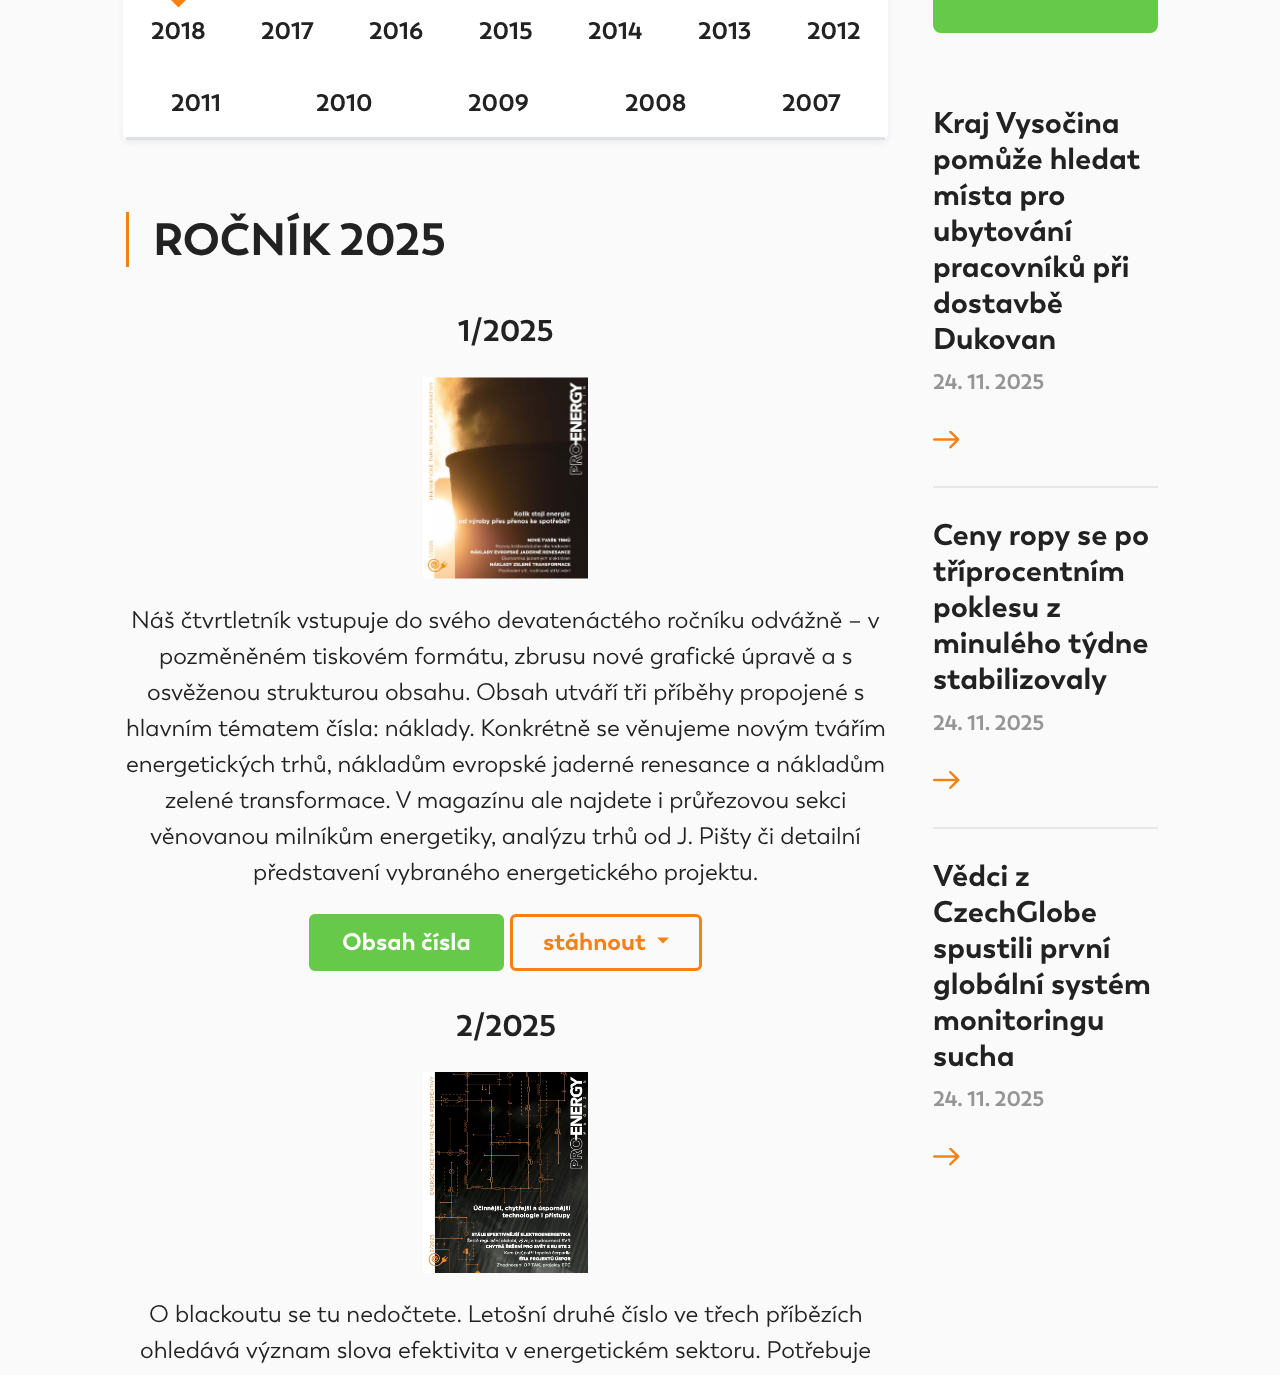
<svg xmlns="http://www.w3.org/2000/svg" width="1280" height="1375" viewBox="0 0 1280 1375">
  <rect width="100%" height="100%" fill="#fafafa"/>
  <rect x="123" y="-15" width="765" height="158" rx="6" fill="#0000000d" filter="blur(3px)"/>
  <rect x="123" y="-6" width="765" height="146" rx="6" fill="#fff"/>
  <path d="M126 137h759v3H126z" fill="#dee2e6"/>
  <path d="M163.5-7.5H193.5L178.5 7.5Z" fill="#f58113"/>
  <path d="M126 212h3v55H126z" fill="#f58113"/>
  <image x="423" y="377" width="165" height="202" href="img/1.png"/>
  <rect x="310.5" y="915.5" width="192" height="54" rx="4.5" fill="#66c94a" stroke="#66c94a" stroke-width="3"/>
  <rect x="511.5" y="915.5" width="189" height="54" rx="4.5" fill="none" stroke="#f58113" stroke-width="3"/>
  <path d="M657 937.5H669L663 943.5Z" fill="#f58113"/>
  <image x="423" y="1072" width="165" height="201" href="img/2.png"/>
  <rect x="934.5" y="-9.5" width="222" height="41" rx="6.5" fill="#66c94a" stroke="#66c94a" stroke-width="3"/>
  <path d="M933 486h225v2H933z" fill="#e7e7e7"/>
  <image x="933" y="431" width="27" height="18" href="img/3.png"/>
  <path d="M933 827h225v2H933z" fill="#e7e7e7"/>
  <image x="933" y="771" width="27" height="18" href="img/4.png"/>
  <image x="933" y="1148" width="27" height="18" href="img/3.png"/>
  <g font-family="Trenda" font-size="24" font-weight="bold" fill="#222">
    <text x="151" y="39">2018</text>
    <text x="261" y="39">2017</text>
    <text x="369" y="39">2016</text>
    <text x="479" y="39">2015</text>
    <text x="588" y="39">2014</text>
    <text x="698" y="39">2013</text>
    <text x="807" y="39">2012</text>
    <text x="171" y="111">2011</text>
    <text x="316" y="111">2010</text>
    <text x="468" y="111">2009</text>
    <text x="625" y="111">2008</text>
    <text x="782" y="111">2007</text>
  </g>
  <text x="153" y="255" font-family="Trenda" font-size="45" font-weight="bold" fill="#222">ROČNÍK 2025</text>
  <text x="458" y="341" font-family="Trenda" font-size="30" font-weight="bold" fill="#222">1/2025</text>
  <g font-family="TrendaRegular" font-size="24" fill="#222">
    <text x="131" y="628">Náš čtvrtletník vstupuje do svého devatenáctého ročníku odvážně – v</text>
    <text x="159" y="664">pozměněném tiskovém formátu, zbrusu nové grafické úpravě a s</text>
    <text x="147" y="700">osvěženou strukturou obsahu. Obsah utváří tři příběhy propojené s</text>
    <text x="126" y="736">hlavním tématem čísla: náklady. Konkrétně se věnujeme novým tvářím</text>
    <text x="126" y="772">energetických trhů, nákladům evropské jaderné renesance a nákladům</text>
    <text x="165" y="808">zelené transformace. V magazínu ale najdete i průřezovou sekci</text>
    <text x="150" y="844">věnovanou milníkům energetiky, analýzu trhů od J. Pišty či detailní</text>
    <text x="253" y="880">představení vybraného energetického projektu.</text>
  </g>
  <text x="342" y="950" font-family="Trenda" font-size="24" font-weight="bold" fill="#fff">Obsah čísla</text>
  <text x="543" y="950" font-family="Trenda" font-size="24" font-weight="bold" fill="#f58113">stáhnout</text>
  <text x="456" y="1036" font-family="Trenda" font-size="30" font-weight="bold" fill="#222">2/2025</text>
  <g font-family="TrendaRegular" font-size="24" fill="#222">
    <text x="149" y="1322">O blackoutu se tu nedočtete. Letošní druhé číslo ve třech příbězích</text>
    <text x="140" y="1358">ohledává význam slova efektivita v energetickém sektoru. Potřebuje</text>
  </g>
  <g font-family="Trenda" font-size="30" font-weight="bold" fill="#222">
    <text x="933" y="133">Kraj Vysočina</text>
    <text x="933" y="169">pomůže hledat</text>
    <text x="933" y="205">místa pro</text>
    <text x="933" y="241">ubytování</text>
    <text x="933" y="277">pracovníků při</text>
    <text x="933" y="313">dostavbě</text>
    <text x="933" y="349">Dukovan</text>
  </g>
  <text x="933" y="389" font-family="Trenda" font-size="21" font-weight="bold" fill="#959595">24. 11. 2025</text>
  <g font-family="Trenda" font-size="30" font-weight="bold" fill="#222">
    <text x="933" y="545">Ceny ropy se po</text>
    <text x="933" y="581">tříprocentním</text>
    <text x="933" y="617">poklesu z</text>
    <text x="933" y="653">minulého týdne</text>
    <text x="933" y="689">stabilizovaly</text>
  </g>
  <text x="933" y="730" font-family="Trenda" font-size="21" font-weight="bold" fill="#959595">24. 11. 2025</text>
  <g font-family="Trenda" font-size="30" font-weight="bold" fill="#222">
    <text x="933" y="886">Vědci z</text>
    <text x="933" y="922">CzechGlobe</text>
    <text x="933" y="958">spustili první</text>
    <text x="933" y="994">globální systém</text>
    <text x="933" y="1030">monitoringu</text>
    <text x="933" y="1066">sucha</text>
  </g>
  <text x="933" y="1106" font-family="Trenda" font-size="21" font-weight="bold" fill="#959595">24. 11. 2025</text>
</svg>
